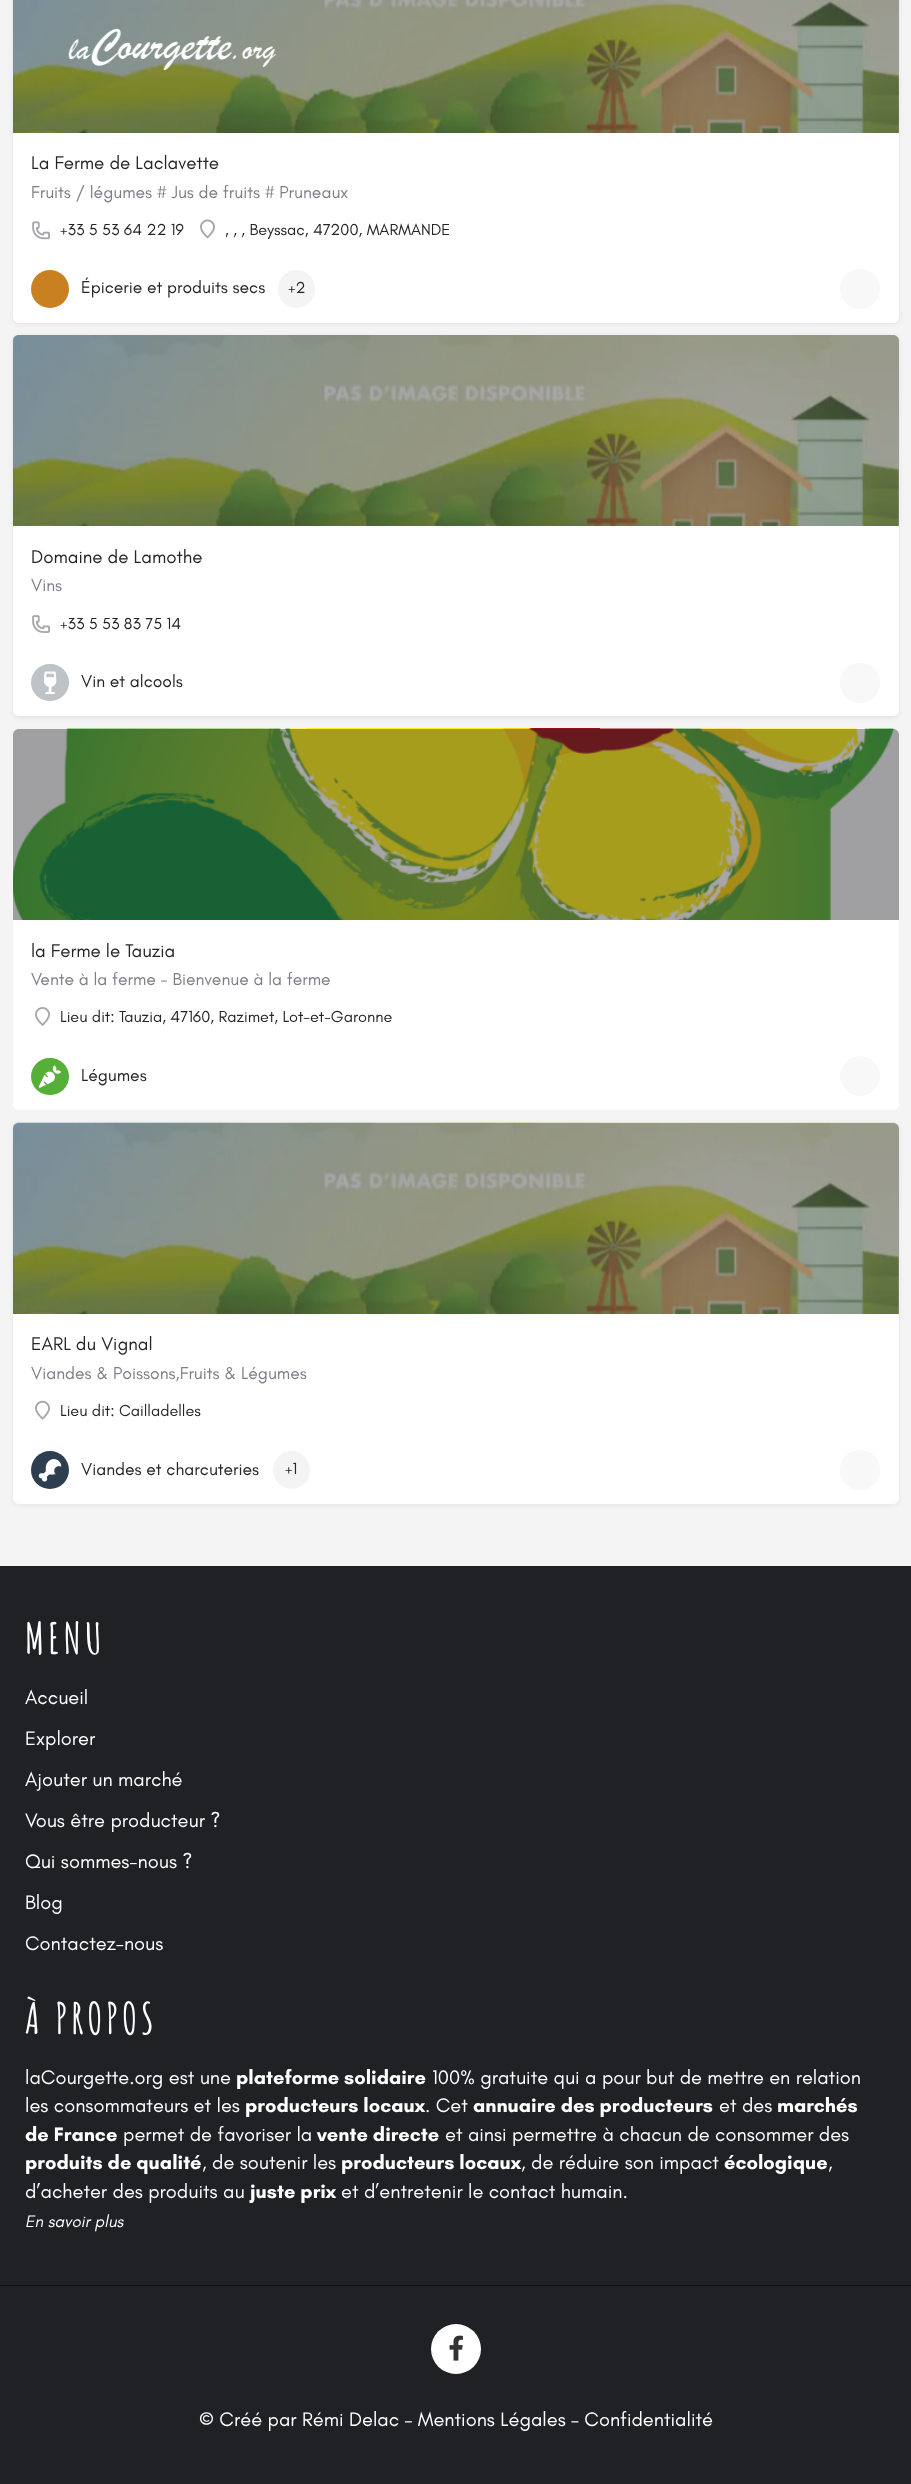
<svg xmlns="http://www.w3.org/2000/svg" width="911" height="2484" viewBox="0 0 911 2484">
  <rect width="100%" height="100%" fill="#f4f4f4"/>
  <rect x="13" y="-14" width="886" height="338" rx="6" fill="#00000012" filter="blur(2.5px)"/>
  <image x="13" y="0" width="886" height="133" href="img/2.png"/>
  <path d="M13 0h886v133H13z" fill="#24242966"/>
  <image x="68" y="28" width="208" height="43" href="img/1.png"/>
  <path d="M13 133h886v121H13z" fill="#fff"/>
  <image x="32" y="221" width="18" height="19" href="img/3.png"/>
  <image x="200" y="219" width="15" height="20" href="img/4.png"/>
  <path d="M13 254H899V317C899 320.5 896.5 323 893 323H19C15.5 323 13 320.5 13 317Z" fill="#fff"/>
  <circle cx="50" cy="289" r="19" fill="#c98020"/>
  <rect x="278" y="270" width="37" height="38" rx="18.5" fill="#f4f4f4"/>
  <circle cx="860" cy="289" r="20" fill="#f8f8f8"/>
  <rect x="13" y="336" width="886" height="382" rx="6" fill="#00000012" filter="blur(2.5px)"/>
  <image x="13" y="335" width="886" height="191" href="img/5.png"/>
  <path d="M19 335H893C896.5 335 899 337.5 899 341V648H13V341C13 337.5 15.5 335 19 335Z" fill="#24242966"/>
  <path d="M13 526h886v122H13z" fill="#fff"/>
  <image x="32" y="615" width="18" height="18" href="img/6.png"/>
  <path d="M13 648H899V710C899 713.5 896.5 716 893 716H19C15.5 716 13 713.5 13 710Z" fill="#fff"/>
  <rect x="31" y="664" width="38" height="37" rx="18.5" fill="#bdc3c7"/>
  <image x="43" y="671" width="14" height="24" href="img/7.png"/>
  <circle cx="860" cy="683" r="20" fill="#f8f8f8"/>
  <image x="13" y="728" width="882" height="192" href="img/8.png"/>
  <path d="M19 729H893C896.5 729 899 731.5 899 735V1041H13V735C13 731.5 15.5 729 19 729Z" fill="#24242966"/>
  <path d="M13 920h886v121H13z" fill="#fff"/>
  <image x="35" y="1007" width="15" height="19" href="img/9.png"/>
  <path d="M13 1041H899V1104C899 1107.5 896.5 1110 893 1110H19C15.5 1110 13 1107.5 13 1104Z" fill="#fff"/>
  <rect x="31" y="1058" width="38" height="37" rx="18.5" fill="#56af36"/>
  <image x="38" y="1065" width="24" height="23" href="img/10.png"/>
  <circle cx="860" cy="1076" r="20" fill="#f8f8f8"/>
  <rect x="13" y="1124" width="886" height="381" rx="6" fill="#00000012" filter="blur(2.5px)"/>
  <image x="13" y="1122" width="886" height="192" href="img/11.png"/>
  <path d="M19 1123H893C896.5 1123 899 1125.5 899 1129V1435H13V1129C13 1125.5 15.5 1123 19 1123Z" fill="#24242966"/>
  <path d="M13 1314h886v121H13z" fill="#fff"/>
  <image x="35" y="1400" width="15" height="20" href="img/12.png"/>
  <path d="M13 1435H899V1498C899 1501.5 896.5 1504 893 1504H19C15.5 1504 13 1501.5 13 1498Z" fill="#fff"/>
  <circle cx="50" cy="1470" r="19" fill="#2c3e50"/>
  <image x="38" y="1459" width="24" height="23" href="img/13.png"/>
  <rect x="273" y="1451" width="37" height="38" rx="18.5" fill="#f4f4f4"/>
  <circle cx="860" cy="1470" r="20" fill="#f8f8f8"/>
  <path d="M0 1566h911v918H0z" fill="#202125"/>
  <path d="M0 2285h911v1H0z" fill="#111"/>
  <circle cx="456" cy="2349" r="25" fill="#fff"/>
  <image x="449" y="2335" width="14" height="26" href="img/14.png"/>
  <text x="31" y="169" font-family="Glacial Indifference" font-size="18.75" fill="#242429">La Ferme de Laclavette</text>
  <text x="31" y="198" font-family="Glacial Indifference" font-size="17.5" fill="#7e7e89">Fruits / légumes # Jus de fruits # Pruneaux</text>
  <g font-family="Glacial Indifference" font-size="16.25" fill="#242429">
    <text x="60" y="235">+33 5 53 64 22 19</text>
    <text x="225" y="235">, , , Beyssac, 47200, MARMANDE</text>
  </g>
  <text x="81" y="293" font-family="Glacial Indifference" font-size="17.5" fill="#242429">Épicerie et produits secs</text>
  <text x="288" y="293" font-family="Glacial Indifference" font-size="16.25" fill="#242429">+2</text>
  <text x="31" y="563" font-family="Glacial Indifference" font-size="18.75" fill="#242429">Domaine de Lamothe</text>
  <text x="31" y="591" font-family="Glacial Indifference" font-size="17.5" fill="#7e7e89">Vins</text>
  <text x="60" y="629" font-family="Glacial Indifference" font-size="16.25" fill="#242429">+33 5 53 83 75 14</text>
  <text x="81" y="687" font-family="Glacial Indifference" font-size="17.5" fill="#242429">Vin et alcools</text>
  <text x="31" y="957" font-family="Glacial Indifference" font-size="18.75" fill="#242429">la Ferme le Tauzia</text>
  <text x="31" y="985" font-family="Glacial Indifference" font-size="17.5" fill="#7e7e89">Vente à la ferme - Bienvenue à la ferme</text>
  <text x="60" y="1022" font-family="Glacial Indifference" font-size="16.25" fill="#242429">Lieu dit: Tauzia, 47160, Razimet, Lot-et-Garonne</text>
  <text x="81" y="1081" font-family="Glacial Indifference" font-size="17.5" fill="#242429">Légumes</text>
  <text x="31" y="1350" font-family="Glacial Indifference" font-size="18.75" fill="#242429">EARL du Vignal</text>
  <text x="31" y="1379" font-family="Glacial Indifference" font-size="17.5" fill="#7e7e89">Viandes &amp; Poissons,Fruits &amp; Légumes</text>
  <text x="60" y="1416" font-family="Glacial Indifference" font-size="16.25" fill="#242429">Lieu dit: Cailladelles</text>
  <text x="81" y="1475" font-family="Glacial Indifference" font-size="17.5" fill="#242429">Viandes et charcuteries</text>
  <text x="285" y="1474" font-family="Glacial Indifference" font-size="16.25" fill="#242429">+1</text>
  <text x="25" y="1654" font-family="Amatic SC" font-size="42.5" font-weight="bold" letter-spacing="3.75" fill="#fff">MENU</text>
  <g font-family="Glacial Indifference" font-size="20" fill="#fff">
    <text x="25" y="1704">Accueil</text>
    <text x="25" y="1745">Explorer</text>
    <text x="25" y="1786">Ajouter un marché</text>
    <text x="25" y="1827">Vous être producteur ?</text>
    <text x="25" y="1868">Qui sommes-nous ?</text>
    <text x="25" y="1909">Blog</text>
    <text x="25" y="1950">Contactez-nous</text>
  </g>
  <text x="25" y="2034" font-family="Amatic SC" font-size="42.5" font-weight="bold" letter-spacing="3.75" fill="#fff">À PROPOS</text>
  <text x="25" y="2084" font-family="Glacial Indifference" font-size="20" fill="#fff">laCourgette.org est une</text>
  <text x="236" y="2084" font-family="Glacial Indifference" font-size="20" font-weight="bold" fill="#fff">plateforme solidaire</text>
  <g font-family="Glacial Indifference" font-size="20" fill="#fff">
    <text x="432" y="2084">100% gratuite qui a pour but de mettre en relation</text>
    <text x="25" y="2112">les consommateurs et les</text>
  </g>
  <text x="245" y="2112" font-family="Glacial Indifference" font-size="20" font-weight="bold" fill="#fff">producteurs locaux</text>
  <text x="425" y="2112" font-family="Glacial Indifference" font-size="20" fill="#fff">. Cet</text>
  <text x="473" y="2112" font-family="Glacial Indifference" font-size="20" font-weight="bold" fill="#fff">annuaire des producteurs</text>
  <text x="719" y="2112" font-family="Glacial Indifference" font-size="20" fill="#fff">et des</text>
  <g font-family="Glacial Indifference" font-size="20" font-weight="bold" fill="#fff">
    <text x="777" y="2112">marchés</text>
    <text x="25" y="2141">de France</text>
  </g>
  <text x="123" y="2141" font-family="Glacial Indifference" font-size="20" fill="#fff">permet de favoriser la</text>
  <text x="317" y="2141" font-family="Glacial Indifference" font-size="20" font-weight="bold" fill="#fff">vente directe</text>
  <text x="445" y="2141" font-family="Glacial Indifference" font-size="20" fill="#fff">et ainsi permettre à chacun de consommer des</text>
  <text x="25" y="2169" font-family="Glacial Indifference" font-size="20" font-weight="bold" fill="#fff">produits de qualité</text>
  <text x="202" y="2169" font-family="Glacial Indifference" font-size="20" fill="#fff">, de soutenir les</text>
  <text x="341" y="2169" font-family="Glacial Indifference" font-size="20" font-weight="bold" fill="#fff">producteurs locaux</text>
  <text x="521" y="2169" font-family="Glacial Indifference" font-size="20" fill="#fff">, de réduire son impact</text>
  <text x="724" y="2169" font-family="Glacial Indifference" font-size="20" font-weight="bold" fill="#fff">écologique</text>
  <g font-family="Glacial Indifference" font-size="20" fill="#fff">
    <text x="828" y="2169">,</text>
    <text x="25" y="2198">d’acheter des produits au</text>
  </g>
  <text x="250" y="2198" font-family="Glacial Indifference" font-size="20" font-weight="bold" fill="#fff">juste prix</text>
  <text x="341" y="2198" font-family="Glacial Indifference" font-size="20" fill="#fff">et d’entretenir le contact humain.</text>
  <text x="25" y="2227" font-family="Glacial Indifference" font-size="17" font-style="italic" fill="#fff">En savoir plus</text>
  <text x="199" y="2426" font-family="Glacial Indifference" font-size="20" fill="#fff">© Créé par Rémi Delac – Mentions Légales – Confidentialité</text>
</svg>
